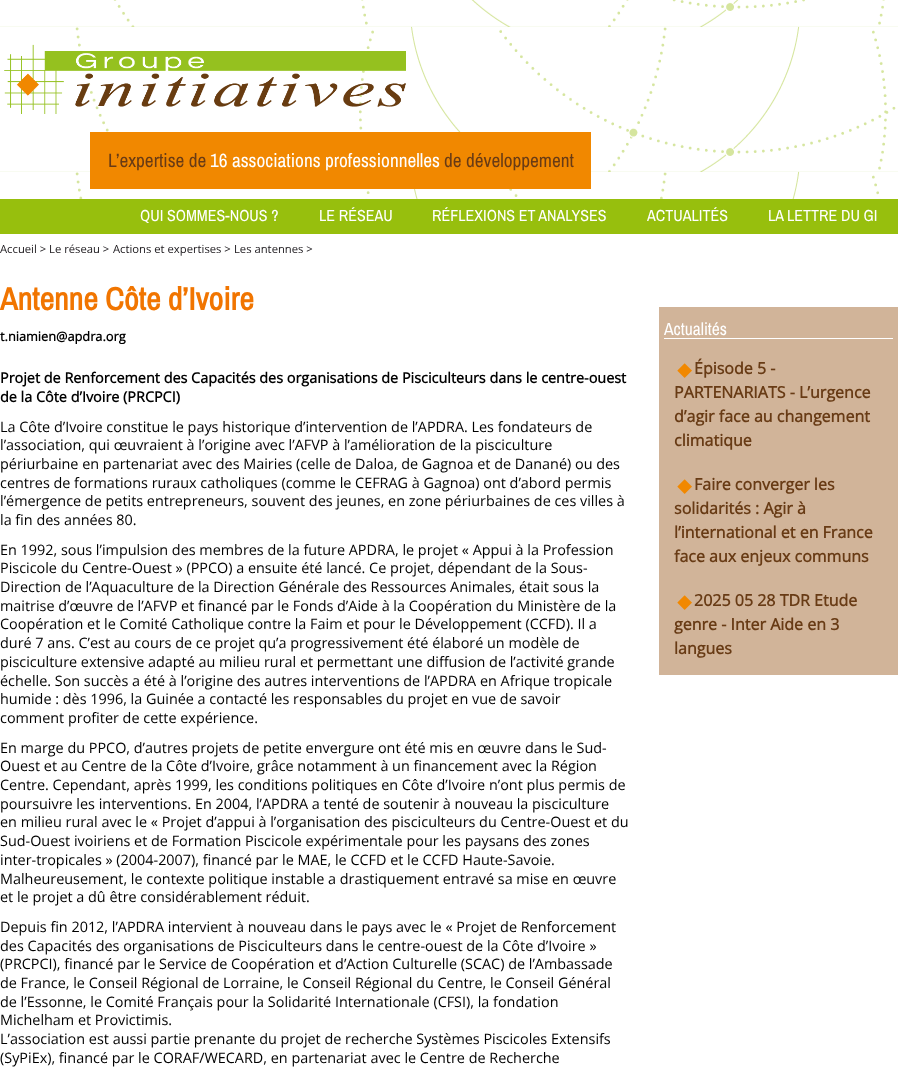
<svg xmlns="http://www.w3.org/2000/svg" width="898" height="1067" viewBox="0 0 898 1067">
  <rect width="100%" height="100%" fill="#fff"/>
  <image x="0" y="0" width="898" height="199" href="img/1.png"/>
  <image x="4" y="44" width="402" height="70" href="img/2.png"/>
  <path d="M90 132h501v57H90z" fill="#f18800"/>
  <path d="M0 199h898v35H0z" fill="#97bf0d"/>
  <path d="M659 307h239v368H659z" fill="#d1b499"/>
  <path d="M664 338h229v1H664z" fill="#fff"/>
  <image x="677" y="363" width="15" height="15" href="img/3.png"/>
  <image x="677" y="479" width="15" height="15" href="img/3.png"/>
  <image x="677" y="595" width="15" height="15" href="img/3.png"/>
  <text x="108" y="167" font-family="Archivo Narrow" font-size="19.25" fill="#683b15">L’expertise de</text>
  <text x="210" y="167" font-family="Archivo Narrow" font-size="19.25" fill="#fff">16 associations professionnelles</text>
  <text x="444" y="167" font-family="Archivo Narrow" font-size="19.25" fill="#683b15">de développement</text>
  <g font-family="Archivo Narrow" font-size="16" fill="#fff">
    <text x="140" y="221">QUI SOMMES-NOUS ?</text>
    <text x="319" y="221">LE RÉSEAU</text>
    <text x="432" y="221">RÉFLEXIONS ET ANALYSES</text>
    <text x="647" y="221">ACTUALITÉS</text>
    <text x="768" y="221">LA LETTRE DU GI</text>
  </g>
  <g font-family="Open Sans" font-size="11.25" fill="#1a171b">
    <text x="0" y="253">Accueil &gt; Le réseau &gt;</text>
    <text x="113" y="253">Actions et expertises &gt;</text>
    <text x="234" y="253">Les antennes &gt;</text>
  </g>
  <text x="0" y="310" font-family="Archivo Narrow" font-size="32" font-weight="bold" fill="#f17500">Antenne Côte d’Ivoire</text>
  <text x="0" y="341" font-family="Open Sans" font-size="12.75" font-weight="bold" fill="#000">t.niamien@apdra.org</text>
  <g font-family="Open Sans" font-size="14.4" font-weight="bold" fill="#000">
    <text x="0" y="383">Projet de Renforcement des Capacités des organisations de Pisciculteurs dans le centre-ouest</text>
    <text x="0" y="402">de la Côte d’Ivoire (PRCPCI)</text>
  </g>
  <g font-family="Open Sans" font-size="14.4" fill="#000">
    <text x="0" y="432">La Côte d’Ivoire constitue le pays historique d’intervention de l’APDRA. Les fondateurs de</text>
    <text x="0" y="450">l’association, qui œuvraient à l’origine avec l’AFVP à l’amélioration de la pisciculture</text>
    <text x="0" y="469">périurbaine en partenariat avec des Mairies (celle de Daloa, de Gagnoa et de Danané) ou des</text>
    <text x="0" y="488">centres de formations ruraux catholiques (comme le CEFRAG à Gagnoa) ont d’abord permis</text>
    <text x="0" y="506">l’émergence de petits entrepreneurs, souvent des jeunes, en zone périurbaines de ces villes à</text>
    <text x="0" y="525">la fin des années 80.</text>
    <text x="0" y="555">En 1992, sous l’impulsion des membres de la future APDRA, le projet « Appui à la Profession</text>
    <text x="0" y="573">Piscicole du Centre-Ouest » (PPCO) a ensuite été lancé. Ce projet, dépendant de la Sous-</text>
    <text x="0" y="592">Direction de l’Aquaculture de la Direction Générale des Ressources Animales, était sous la</text>
    <text x="0" y="611">maitrise d’œuvre de l’AFVP et financé par le Fonds d’Aide à la Coopération du Ministère de la</text>
    <text x="0" y="629">Coopération et le Comité Catholique contre la Faim et pour le Développement (CCFD). Il a</text>
    <text x="0" y="648">duré 7 ans. C’est au cours de ce projet qu’a progressivement été élaboré un modèle de</text>
    <text x="0" y="667">pisciculture extensive adapté au milieu rural et permettant une diffusion de l’activité grande</text>
    <text x="0" y="686">échelle. Son succès a été à l’origine des autres interventions de l’APDRA en Afrique tropicale</text>
    <text x="0" y="704">humide : dès 1996, la Guinée a contacté les responsables du projet en vue de savoir</text>
    <text x="0" y="723">comment profiter de cette expérience.</text>
    <text x="0" y="753">En marge du PPCO, d’autres projets de petite envergure ont été mis en œuvre dans le Sud-</text>
    <text x="0" y="771">Ouest et au Centre de la Côte d’Ivoire, grâce notamment à un financement avec la Région</text>
    <text x="0" y="790">Centre. Cependant, après 1999, les conditions politiques en Côte d’Ivoire n’ont plus permis de</text>
    <text x="0" y="809">poursuivre les interventions. En 2004, l’APDRA a tenté de soutenir à nouveau la pisciculture</text>
    <text x="0" y="827">en milieu rural avec le « Projet d’appui à l’organisation des pisciculteurs du Centre-Ouest et du</text>
    <text x="0" y="846">Sud-Ouest ivoiriens et de Formation Piscicole expérimentale pour les paysans des zones</text>
    <text x="0" y="865">inter-tropicales » (2004-2007), financé par le MAE, le CCFD et le CCFD Haute-Savoie.</text>
    <text x="0" y="884">Malheureusement, le contexte politique instable a drastiquement entravé sa mise en œuvre</text>
    <text x="0" y="902">et le projet a dû être considérablement réduit.</text>
    <text x="0" y="932">Depuis fin 2012, l’APDRA intervient à nouveau dans le pays avec le « Projet de Renforcement</text>
    <text x="0" y="951">des Capacités des organisations de Pisciculteurs dans le centre-ouest de la Côte d’Ivoire »</text>
    <text x="0" y="969">(PRCPCI), financé par le Service de Coopération et d’Action Culturelle (SCAC) de l’Ambassade</text>
    <text x="0" y="988">de France, le Conseil Régional de Lorraine, le Conseil Régional du Centre, le Conseil Général</text>
    <text x="0" y="1007">de l’Essonne, le Comité Français pour la Solidarité Internationale (CFSI), la fondation</text>
    <text x="0" y="1025">Michelham et Provictimis.</text>
    <text x="0" y="1044">L’association est aussi partie prenante du projet de recherche Systèmes Piscicoles Extensifs</text>
    <text x="0" y="1063">(SyPiEx), financé par le CORAF/WECARD, en partenariat avec le Centre de Recherche</text>
  </g>
  <text x="664" y="335" font-family="Archivo Narrow" font-size="17.5" fill="#fff">Actualités</text>
  <g font-family="Open Sans" font-size="16" font-weight="bold" fill="#683b15">
    <text x="694" y="374">Épisode 5 -</text>
    <text x="674" y="398">PARTENARIATS - L’urgence</text>
    <text x="674" y="422">d’agir face au changement</text>
    <text x="674" y="446">climatique</text>
    <text x="694" y="490">Faire converger les</text>
    <text x="674" y="514">solidarités : Agir à</text>
    <text x="674" y="538">l’international et en France</text>
    <text x="674" y="562">face aux enjeux communs</text>
    <text x="694" y="606">2025 05 28 TDR Etude</text>
    <text x="674" y="630">genre - Inter Aide en 3</text>
    <text x="674" y="654">langues</text>
  </g>
</svg>
